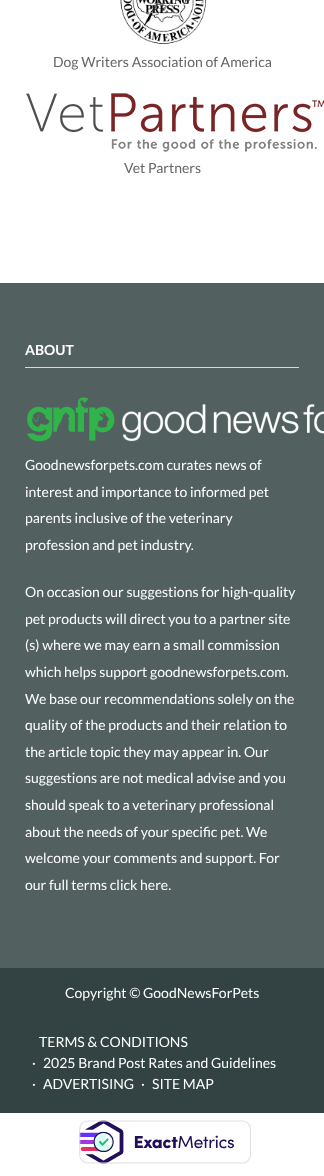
<svg xmlns="http://www.w3.org/2000/svg" width="324" height="1176" viewBox="0 0 324 1176">
  <rect width="100%" height="100%" fill="#fff"/>
  <image x="120" y="0" width="86" height="44" href="img/1.png"/>
  <image x="26" y="93" width="298" height="59" href="img/2.png"/>
  <path d="M0 283h324v685H0z" fill="#536060"/>
  <path d="M25 367h274v1H25z" fill="#d9d9d9"/>
  <image x="27" y="397" width="297" height="45" href="img/3.png"/>
  <path d="M0 968h324v145H0z" fill="#334242"/>
  <image x="79" y="1120" width="172" height="44" href="img/4.png"/>
  <g font-family="Lato" font-size="14" fill="#656565">
    <text x="53" y="67">Dog Writers Association of America</text>
    <text x="124" y="173">Vet Partners</text>
  </g>
  <text x="25" y="355" font-family="Lato" font-size="14" font-weight="bold" fill="#fff">ABOUT</text>
  <g font-family="Lato" font-size="14" fill="#fff">
    <text x="25" y="470">Goodnewsforpets.com curates news of</text>
    <text x="25" y="497">interest and importance to informed pet</text>
    <text x="25" y="523">parents inclusive of the veterinary</text>
    <text x="25" y="550">profession and pet industry.</text>
    <text x="25" y="597">On occasion our suggestions for high-quality</text>
    <text x="25" y="624">pet products will direct you to a partner site</text>
    <text x="25" y="650">(s) where we may earn a small commission</text>
    <text x="25" y="677">which helps support goodnewsforpets.com.</text>
    <text x="25" y="704">We base our recommendations solely on the</text>
    <text x="25" y="730">quality of the products and their relation to</text>
    <text x="25" y="757">the article topic they may appear in. Our</text>
    <text x="25" y="783">suggestions are not medical advise and you</text>
    <text x="25" y="810">should speak to a veterinary professional</text>
    <text x="25" y="837">about the needs of your specific pet. We</text>
    <text x="25" y="863">welcome your comments and support. For</text>
    <text x="25" y="890">our full terms click here.</text>
    <text x="65" y="998">Copyright © GoodNewsForPets</text>
    <text x="39" y="1047">TERMS &amp; CONDITIONS</text>
    <text x="32" y="1068">·</text>
    <text x="43" y="1068">2025 Brand Post Rates and Guidelines</text>
    <text x="32" y="1089">·</text>
    <text x="43" y="1089">ADVERTISING</text>
    <text x="141" y="1089">·</text>
    <text x="152" y="1089">SITE MAP</text>
  </g>
</svg>
